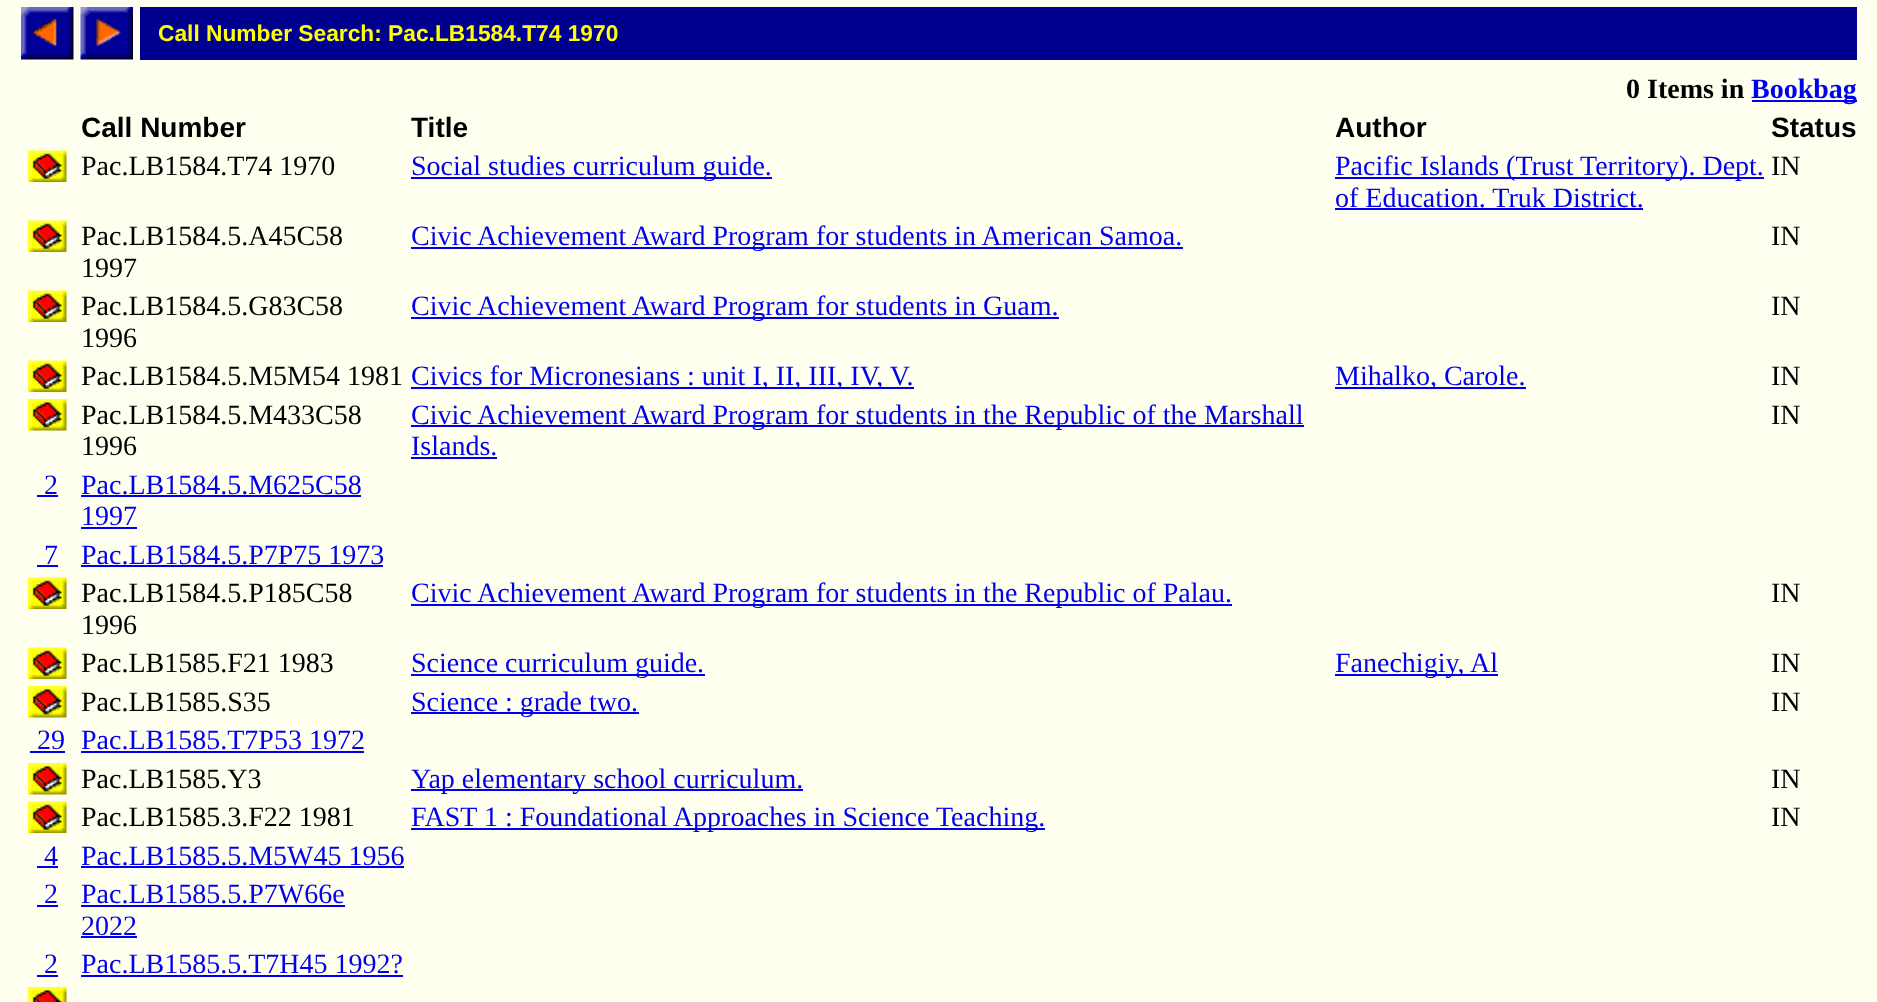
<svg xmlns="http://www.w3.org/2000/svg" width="1877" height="1002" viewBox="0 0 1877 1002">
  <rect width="100%" height="100%" fill="#ffffef"/>
  <image x="21" y="7" width="53" height="53" href="img/1.png"/>
  <image x="80" y="7" width="53" height="53" href="img/2.png"/>
  <path d="M140 7h1717v53H140z" fill="#00008e"/>
  <path d="M1752 100h105v2H1752z" fill="#00e"/>
  <image x="28" y="150" width="39" height="32" href="img/3.png"/>
  <path d="M411 177h361v2H411z" fill="#00e"/>
  <path d="M1335 177h429v2H1335z" fill="#00e"/>
  <path d="M1335 208h308v2H1335z" fill="#00e"/>
  <image x="28" y="220" width="39" height="32" href="img/4.png"/>
  <path d="M411 247h772v2H411z" fill="#00e"/>
  <image x="28" y="290" width="39" height="32" href="img/3.png"/>
  <path d="M411 317h648v2H411z" fill="#00e"/>
  <image x="28" y="360" width="39" height="32" href="img/3.png"/>
  <path d="M411 387h503v2H411z" fill="#00e"/>
  <path d="M1335 387h191v2H1335z" fill="#00e"/>
  <image x="28" y="399" width="39" height="32" href="img/5.png"/>
  <path d="M411 425h893v2H411z" fill="#00e"/>
  <path d="M411 457h86v2H411z" fill="#00e"/>
  <path d="M37 495h21v2H37z" fill="#00e"/>
  <path d="M81 495h280v2H81z" fill="#00e"/>
  <path d="M81 527h56v2H81z" fill="#00e"/>
  <path d="M37 565h21v2H37z" fill="#00e"/>
  <path d="M81 565h302v2H81z" fill="#00e"/>
  <image x="28" y="577" width="39" height="32" href="img/3.png"/>
  <path d="M411 604h821v2H411z" fill="#00e"/>
  <image x="28" y="647" width="39" height="32" href="img/3.png"/>
  <path d="M411 674h294v2H411z" fill="#00e"/>
  <path d="M1335 674h163v2H1335z" fill="#00e"/>
  <image x="28" y="686" width="39" height="32" href="img/5.png"/>
  <path d="M411 712h228v2H411z" fill="#00e"/>
  <path d="M30 751h35v2H30z" fill="#00e"/>
  <path d="M81 751h283v2H81z" fill="#00e"/>
  <image x="28" y="763" width="39" height="32" href="img/5.png"/>
  <path d="M411 789h392v2H411z" fill="#00e"/>
  <image x="28" y="801" width="39" height="32" href="img/3.png"/>
  <path d="M411 828h634v2H411z" fill="#00e"/>
  <path d="M37 866h21v2H37z" fill="#00e"/>
  <path d="M81 866h323v2H81z" fill="#00e"/>
  <path d="M37 905h21v2H37z" fill="#00e"/>
  <path d="M81 905h264v2H81z" fill="#00e"/>
  <path d="M81 936h56v2H81z" fill="#00e"/>
  <path d="M37 975h21v2H37z" fill="#00e"/>
  <path d="M81 975h322v2H81z" fill="#00e"/>
  <image x="28" y="987" width="39" height="15" href="img/6.png"/>
  <text x="158" y="41" font-family="Liberation Sans" font-size="22.75" font-weight="bold" fill="#ff0">Call Number Search: Pac.LB1584.T74 1970</text>
  <text x="1626" y="98" font-family="Liberation Serif" font-size="28" font-weight="bold" fill="#000">0 Items in</text>
  <text x="1751" y="98" font-family="Liberation Serif" font-size="28" font-weight="bold" fill="#00e">Bookbag</text>
  <g font-family="Liberation Sans" font-size="28" font-weight="bold" fill="#000">
    <text x="81" y="137">Call Number</text>
    <text x="411" y="137">Title</text>
    <text x="1335" y="137">Author</text>
    <text x="1771" y="137">Status</text>
  </g>
  <text x="81" y="175" font-family="Liberation Serif" font-size="28" fill="#000">Pac.LB1584.T74 1970</text>
  <g font-family="Liberation Serif" font-size="28" fill="#00e">
    <text x="411" y="175">Social studies curriculum guide.</text>
    <text x="1335" y="175">Pacific Islands (Trust Territory). Dept.</text>
    <text x="1335" y="207">of Education. Truk District.</text>
  </g>
  <g font-family="Liberation Serif" font-size="28" fill="#000">
    <text x="1771" y="175">IN</text>
    <text x="81" y="245">Pac.LB1584.5.A45C58</text>
    <text x="81" y="277">1997</text>
  </g>
  <text x="411" y="245" font-family="Liberation Serif" font-size="28" fill="#00e">Civic Achievement Award Program for students in American Samoa.</text>
  <g font-family="Liberation Serif" font-size="28" fill="#000">
    <text x="1771" y="245">IN</text>
    <text x="81" y="315">Pac.LB1584.5.G83C58</text>
    <text x="81" y="347">1996</text>
  </g>
  <text x="411" y="315" font-family="Liberation Serif" font-size="28" fill="#00e">Civic Achievement Award Program for students in Guam.</text>
  <g font-family="Liberation Serif" font-size="28" fill="#000">
    <text x="1771" y="315">IN</text>
    <text x="81" y="385">Pac.LB1584.5.M5M54 1981</text>
  </g>
  <g font-family="Liberation Serif" font-size="28" fill="#00e">
    <text x="411" y="385">Civics for Micronesians : unit I, II, III, IV, V.</text>
    <text x="1335" y="385">Mihalko, Carole.</text>
  </g>
  <g font-family="Liberation Serif" font-size="28" fill="#000">
    <text x="1771" y="385">IN</text>
    <text x="81" y="424">Pac.LB1584.5.M433C58</text>
    <text x="81" y="455">1996</text>
  </g>
  <g font-family="Liberation Serif" font-size="28" fill="#00e">
    <text x="411" y="424">Civic Achievement Award Program for students in the Republic of the Marshall</text>
    <text x="411" y="455">Islands.</text>
  </g>
  <text x="1771" y="424" font-family="Liberation Serif" font-size="28" fill="#000">IN</text>
  <g font-family="Liberation Serif" font-size="28" fill="#00e">
    <text x="44" y="494">2</text>
    <text x="81" y="494">Pac.LB1584.5.M625C58</text>
    <text x="81" y="525">1997</text>
    <text x="44" y="564">7</text>
    <text x="81" y="564">Pac.LB1584.5.P7P75 1973</text>
  </g>
  <g font-family="Liberation Serif" font-size="28" fill="#000">
    <text x="81" y="602">Pac.LB1584.5.P185C58</text>
    <text x="81" y="634">1996</text>
  </g>
  <text x="411" y="602" font-family="Liberation Serif" font-size="28" fill="#00e">Civic Achievement Award Program for students in the Republic of Palau.</text>
  <g font-family="Liberation Serif" font-size="28" fill="#000">
    <text x="1771" y="602">IN</text>
    <text x="81" y="672">Pac.LB1585.F21 1983</text>
  </g>
  <g font-family="Liberation Serif" font-size="28" fill="#00e">
    <text x="411" y="672">Science curriculum guide.</text>
    <text x="1335" y="672">Fanechigiy, Al</text>
  </g>
  <g font-family="Liberation Serif" font-size="28" fill="#000">
    <text x="1771" y="672">IN</text>
    <text x="81" y="711">Pac.LB1585.S35</text>
  </g>
  <text x="411" y="711" font-family="Liberation Serif" font-size="28" fill="#00e">Science : grade two.</text>
  <text x="1771" y="711" font-family="Liberation Serif" font-size="28" fill="#000">IN</text>
  <g font-family="Liberation Serif" font-size="28" fill="#00e">
    <text x="37" y="749">29</text>
    <text x="81" y="749">Pac.LB1585.T7P53 1972</text>
  </g>
  <text x="81" y="788" font-family="Liberation Serif" font-size="28" fill="#000">Pac.LB1585.Y3</text>
  <text x="411" y="788" font-family="Liberation Serif" font-size="28" fill="#00e">Yap elementary school curriculum.</text>
  <g font-family="Liberation Serif" font-size="28" fill="#000">
    <text x="1771" y="788">IN</text>
    <text x="81" y="826">Pac.LB1585.3.F22 1981</text>
  </g>
  <text x="411" y="826" font-family="Liberation Serif" font-size="28" fill="#00e">FAST 1 : Foundational Approaches in Science Teaching.</text>
  <text x="1771" y="826" font-family="Liberation Serif" font-size="28" fill="#000">IN</text>
  <g font-family="Liberation Serif" font-size="28" fill="#00e">
    <text x="44" y="865">4</text>
    <text x="81" y="865">Pac.LB1585.5.M5W45 1956</text>
    <text x="44" y="903">2</text>
    <text x="81" y="903">Pac.LB1585.5.P7W66e</text>
    <text x="81" y="935">2022</text>
    <text x="44" y="973">2</text>
    <text x="81" y="973">Pac.LB1585.5.T7H45 1992?</text>
  </g>
</svg>
